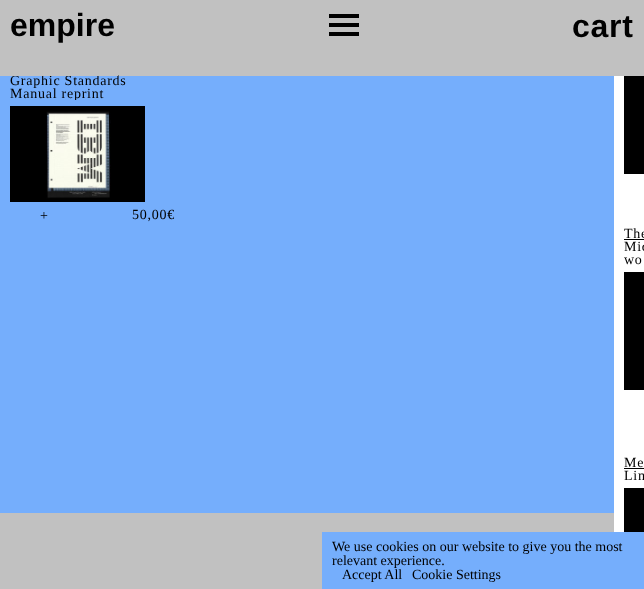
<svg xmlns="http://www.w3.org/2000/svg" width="644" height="589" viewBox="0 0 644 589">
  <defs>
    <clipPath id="clip1"><path d="M10 61h165v39H10z"/></clipPath>
  </defs>
  <rect width="100%" height="100%" fill="#c1c1c1"/>
  <path d="M0 76h614v437H0z" fill="#75aefc"/>
  <path d="M329 23h30v4H329z" fill="#000"/>
  <path d="M329 14h30v4H329z" fill="#000"/>
  <path d="M329 32h30v4H329z" fill="#000"/>
  <image x="10" y="106" width="135" height="96" href="img/1.png"/>
  <path d="M614 76h30v456H614z" fill="#fff"/>
  <path d="M624 76h20v98H624z" fill="#000"/>
  <path d="M624 239h20v1H624z" fill="#000"/>
  <path d="M624 272h20v118H624z" fill="#000"/>
  <path d="M624 468h20v1H624z" fill="#000"/>
  <path d="M624 488h20v44H624z" fill="#000"/>
  <path d="M322 532h322v57H322z" fill="#75aefc"/>
  <text x="10" y="36" font-family="Liberation Sans" font-size="32" font-weight="bold" fill="#000">empire</text>
  <text x="572" y="37" font-family="Liberation Sans" font-size="32" font-weight="bold" letter-spacing="0.75" fill="#000">cart</text>
  <text x="10" y="85" font-family="Liberation Serif" font-size="14" letter-spacing="0.75" fill="#000">Graphic Standards</text>
  <path d="M13 75h105v1H13z" fill="#c1c1c1"/>
  <g clip-path="url(#clip1)">
    <text x="10" y="98" font-family="Liberation Serif" font-size="14" letter-spacing="0.75" fill="#000">Manual reprint</text>
  </g>
  <text x="40" y="220" font-family="Liberation Serif" font-size="14" fill="#000">+</text>
  <g font-family="Liberation Serif" font-size="14" letter-spacing="0.75" fill="#000">
    <text x="132" y="219">50,00€</text>
    <text x="624" y="238">The</text>
    <text x="624" y="251">Mic</text>
    <text x="624" y="264">wo</text>
    <text x="624" y="467">Me</text>
    <text x="624" y="480">Lim</text>
  </g>
  <g font-family="Liberation Serif" font-size="14" fill="#000">
    <text x="332" y="551">We use cookies on our website to give you the most</text>
    <text x="332" y="565">relevant experience.</text>
    <text x="342" y="579">Accept All</text>
    <text x="412" y="579">Cookie Settings</text>
  </g>
</svg>
